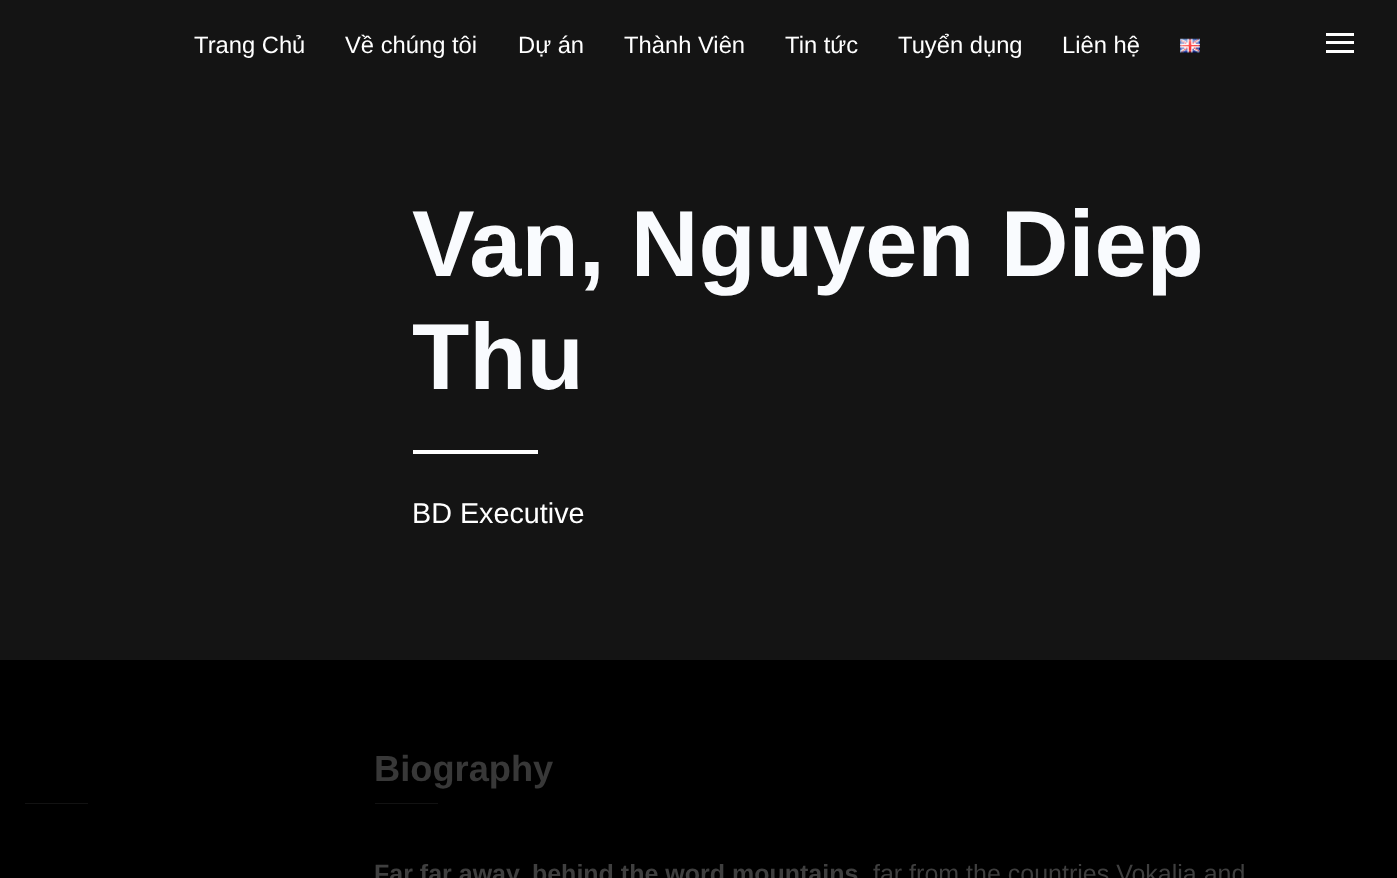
<svg xmlns="http://www.w3.org/2000/svg" width="1397" height="878" viewBox="0 0 1397 878">
  <rect width="100%" height="100%" fill="#000"/>
  <path d="M0 0h1397v660H0z" fill="#141414"/>
  <image x="1180" y="38" width="20" height="15" href="img/1.png"/>
  <path d="M1326 33h28v3H1326z" fill="#fff"/>
  <path d="M1326 41h28v3H1326z" fill="#fff"/>
  <path d="M1326 50h28v3H1326z" fill="#fff"/>
  <path d="M413 450h125v4H413z" fill="#fff"/>
  <path d="M25 803h63v1H25z" fill="#121212"/>
  <path d="M375 803h63v1H375z" fill="#121212"/>
  <g font-family="Liberation Sans" font-size="23.75" fill="#fff">
    <text x="194" y="53">Trang Chủ</text>
    <text x="345" y="53">Về chúng tôi</text>
    <text x="518" y="53">Dự án</text>
    <text x="624" y="53">Thành Viên</text>
    <text x="785" y="53">Tin tức</text>
    <text x="898" y="53">Tuyển dụng</text>
    <text x="1062" y="53">Liên hệ</text>
  </g>
  <g font-family="Liberation Sans" font-size="93.75" font-weight="bold" fill="#f9fbfe">
    <text x="412" y="276">Van, Nguyen Diep</text>
    <text x="412" y="389">Thu</text>
  </g>
  <text x="412" y="523" font-family="Liberation Sans" font-size="28.75" fill="#fff">BD Executive</text>
  <text x="374" y="781" font-family="Liberation Sans" font-size="36.25" font-weight="bold" fill="#383838">Biography</text>
  <text x="374" y="882" font-family="Liberation Sans" font-size="25" font-weight="bold" fill="#3f3f3f">Far far away, behind the word mountains</text>
  <text x="873" y="882" font-family="Liberation Sans" font-size="25" fill="#3f3f3f">far from the countries Vokalia and</text>
</svg>
